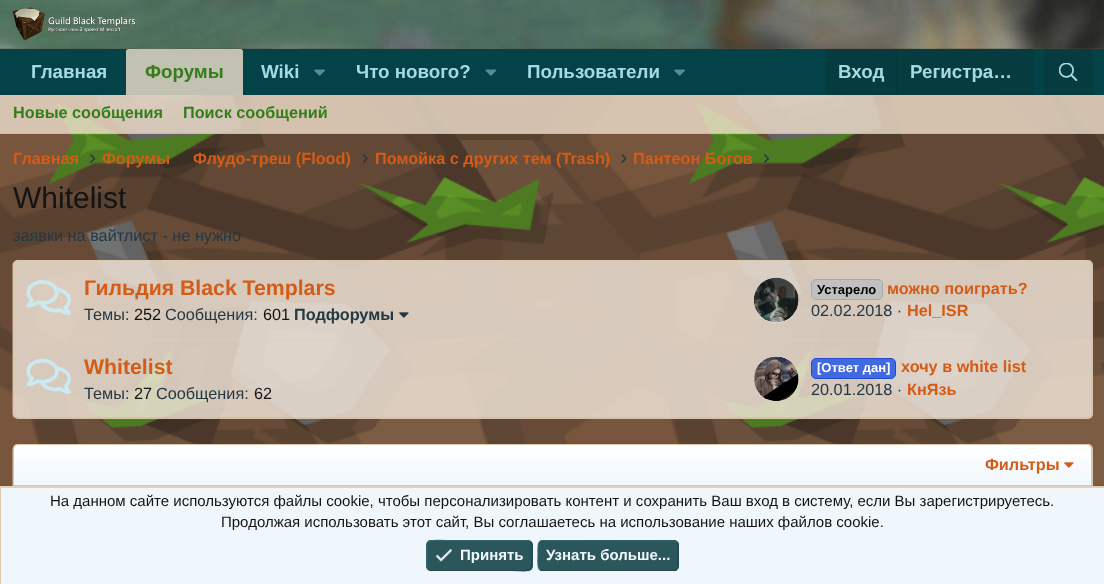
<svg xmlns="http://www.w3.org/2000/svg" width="1104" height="584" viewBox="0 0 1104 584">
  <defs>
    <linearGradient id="g1" gradientUnits="userSpaceOnUse" x1="553" y1="485" x2="553" y2="445"><stop offset="0" stop-color="#f0f7fc"/><stop offset="1" stop-color="#fff"/></linearGradient>
  </defs>
  <rect width="100%" height="100%" fill="#fff"/>
  <image x="0" y="48" width="1104" height="438" href="img/1.png"/>
  <image x="0" y="0" width="1104" height="49" href="img/2.png"/>
  <image x="12" y="7" width="124" height="34" href="img/3.png"/>
  <path d="M0 49h1104v46H0z" fill="#034246"/>
  <path d="M128.5 49H240.5C242 49 243 50 243 51.5V95H126V51.5C126 50 127 49 128.5 49Z" fill="#c3c1b2"/>
  <image x="314" y="69" width="11" height="7" href="img/4.png"/>
  <image x="485" y="69" width="11" height="7" href="img/5.png"/>
  <image x="674" y="69" width="11" height="7" href="img/4.png"/>
  <path d="M830 49H1029C1032 49 1034 51 1034 54V95H825V54C825 51 827 49 830 49Z" fill="#063b3f"/>
  <path d="M896 49h1v46H896z" fill="#083539"/>
  <path d="M1049 49H1088C1091 49 1093 51 1093 54V95H1044V54C1044 51 1046 49 1049 49Z" fill="#063b3f"/>
  <image x="1059" y="63" width="19" height="18" href="img/6.png"/>
  <path d="M0 95h1104v39H0z" fill="#eadbc8d4"/>
  <path d="M0 133h1104v1H0z" fill="#d4b58dd4"/>
  <image x="90" y="154" width="5" height="9" href="img/7.png"/>
  <image x="181" y="154" width="5" height="9" href="img/8.png"/>
  <image x="363" y="154" width="5" height="9" href="img/9.png"/>
  <image x="621" y="154" width="5" height="9" href="img/10.png"/>
  <image x="764" y="154" width="6" height="9" href="img/11.png"/>
  <rect x="13" y="260" width="1080" height="159" rx="5" fill="#f0e5d7d4"/>
  <path d="M14.5 262L17.5 260.5H1087.5L1090.5 262" fill="none" stroke="#dfc8aad4" stroke-width="1.2"/>
  <path d="M1090.5 262C1091.5 262.5 1092 264 1092 265V414C1092 415 1091.5 416 1090.5 417" fill="none" stroke="#dabe9cd4" stroke-width="1.2"/>
  <path d="M1090.5 417L1087.5 418H17.5L14.5 417" fill="none" stroke="#d4b58dd4" stroke-width="1.2"/>
  <path d="M14.5 417C13.5 416 13 415 13 414V265C13 264 13.5 262.5 14.5 262" fill="none" stroke="#dabe9cd4" stroke-width="1.2"/>
  <image x="26" y="280" width="45" height="35" href="img/12.png"/>
  <image x="399" y="312" width="10" height="6" href="img/13.png"/>
  <circle cx="776.5" cy="300.5" r="22.5" fill="#f0e5d7d4"/>
  <image x="754" y="277" width="45" height="46" href="img/14.png"/>
  <rect x="811.5" y="279.5" width="71" height="20" rx="4.5" fill="#c0c0c0" stroke="#a7a7a7"/>
  <path d="M14 339h1077v1H14z" fill="#e2cdb2d4"/>
  <image x="26" y="358" width="45" height="36" href="img/15.png"/>
  <circle cx="776.5" cy="378.5" r="22.5" fill="#f0e5d7d4"/>
  <image x="754" y="356" width="45" height="45" href="img/16.png"/>
  <rect x="811.5" y="358.5" width="84" height="20" rx="4.5" fill="#4169e1" stroke="#214cce"/>
  <rect x="13" y="444" width="1080" height="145" rx="5" fill="#f0e5d7d4"/>
  <path d="M14.5 445.5L17.5 444.5H1087.5L1090.5 445.5" fill="none" stroke="#dfc8aad4" stroke-width="1.2"/>
  <path d="M1090.5 445.5L1092 449V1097.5L1090.5 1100.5" fill="none" stroke="#dabe9cd4" stroke-width="1.2"/>
  <path d="M14.5 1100.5L13 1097.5V449L14.5 445.5" fill="none" stroke="#dabe9cd4" stroke-width="1.2"/>
  <path d="M18 445H1087C1089 445 1091 447 1091 449V485H14V449C14 447 16 445 18 445Z" fill="url(#g1)"/>
  <path d="M14 485h1077v1H14z" fill="#dbc2a0"/>
  <image x="1064" y="462" width="10" height="6" href="img/17.png"/>
  <path d="M0 486h1104v98H0z" fill="#f0f7fc"/>
  <path d="M0 486H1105L1104 488H1Z" fill="#e2d0b8"/>
  <path d="M0 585V486L1 488V584Z" fill="#dabe9cd4"/>
  <rect x="426" y="540" width="107" height="31" rx="5" fill="#2b565c"/>
  <path d="M530.5 542C533 544.5 532 552.5 532 555.5C532 574.5 532.5 570.5 511.5 570.5H431L428 569.5" fill="none" stroke="#23464b" stroke-width="1.2"/>
  <path d="M428 569.5C425.5 566.5 427 559 427 555.5C427 537 426 540.5 447.5 540.5H527.5L530.5 542" fill="none" stroke="#33666d" stroke-width="1.2"/>
  <image x="436" y="548" width="16" height="14" href="img/18.png"/>
  <rect x="538" y="540" width="141" height="31" rx="5" fill="#2b565c"/>
  <path d="M677 542C679.5 544.5 678 552.5 678 555.5V562.5C678 566 678.5 570.5 674 570.5H541L539.5 569.5" fill="none" stroke="#23464b" stroke-width="1.2"/>
  <path d="M539.5 569.5C537 566.5 538 559 538 555.5V548.5C538 545.5 538 540.5 542.5 540.5L675.5 541L677 542" fill="none" stroke="#33666d" stroke-width="1.2"/>
  <text x="31" y="78" font-family="Liberation Sans" font-size="18.75" font-weight="bold" fill="#a5dae4">Главная</text>
  <text x="145" y="78" font-family="Liberation Sans" font-size="18.75" font-weight="bold" fill="#337d1a">Форумы</text>
  <g font-family="Liberation Sans" font-size="18.75" font-weight="bold" fill="#a5dae4">
    <text x="261" y="78">Wiki</text>
    <text x="356" y="78">Что нового?</text>
    <text x="527" y="78">Пользователи</text>
    <text x="838" y="78">Вход</text>
    <text x="910" y="78">Регистра…</text>
  </g>
  <g font-family="Liberation Sans" font-size="16.25" font-weight="bold" fill="#337d1a">
    <text x="13" y="118">Новые сообщения</text>
    <text x="183" y="118">Поиск сообщений</text>
  </g>
  <g font-family="Liberation Sans" font-size="16.25" font-weight="bold" fill="#d45c17">
    <text x="13" y="164">Главная</text>
    <text x="102" y="164">Форумы</text>
    <text x="193" y="164">Флудо-треш (Flood)</text>
    <text x="375" y="164">Помойка с других тем (Trash)</text>
    <text x="633" y="164">Пантеон Богов</text>
  </g>
  <text x="13" y="208" font-family="Liberation Sans" font-size="30" fill="#141414">Whitelist</text>
  <text x="13" y="241" font-family="Liberation Sans" font-size="16.25" fill="#233844">заявки на вайтлист - не нужно</text>
  <text x="84" y="295" font-family="Liberation Sans" font-size="21.25" font-weight="bold" fill="#d45c17">Гильдия Black Templars</text>
  <text x="84" y="320" font-family="Liberation Sans" font-size="16.25" fill="#233844">Темы:</text>
  <text x="134" y="320" font-family="Liberation Sans" font-size="16.25" fill="#141414">252</text>
  <text x="165" y="320" font-family="Liberation Sans" font-size="16.25" fill="#233844">Сообщения:</text>
  <text x="263" y="320" font-family="Liberation Sans" font-size="16.25" fill="#141414">601</text>
  <text x="294" y="320" font-family="Liberation Sans" font-size="16.25" font-weight="bold" fill="#233844">Подфорумы</text>
  <text x="817" y="294" font-family="Liberation Sans" font-size="13" font-weight="bold" fill="#000">Устарело</text>
  <text x="887" y="294" font-family="Liberation Sans" font-size="16.25" font-weight="bold" fill="#d45c17">можно поиграть?</text>
  <text x="811" y="316" font-family="Liberation Sans" font-size="16.25" fill="#233844">02.02.2018 ·</text>
  <text x="907" y="316" font-family="Liberation Sans" font-size="16.25" font-weight="bold" fill="#d45c17">Hel_ISR</text>
  <text x="84" y="374" font-family="Liberation Sans" font-size="21.25" font-weight="bold" fill="#d45c17">Whitelist</text>
  <text x="84" y="399" font-family="Liberation Sans" font-size="16.25" fill="#233844">Темы:</text>
  <text x="134" y="399" font-family="Liberation Sans" font-size="16.25" fill="#141414">27</text>
  <text x="156" y="399" font-family="Liberation Sans" font-size="16.25" fill="#233844">Сообщения:</text>
  <text x="254" y="399" font-family="Liberation Sans" font-size="16.25" fill="#141414">62</text>
  <text x="817" y="372" font-family="Liberation Sans" font-size="13" font-weight="bold" fill="#fff">[Ответ дан]</text>
  <text x="901" y="372" font-family="Liberation Sans" font-size="16.25" font-weight="bold" fill="#d45c17">хочу в white list</text>
  <text x="811" y="395" font-family="Liberation Sans" font-size="16.25" fill="#233844">20.01.2018 ·</text>
  <g font-family="Liberation Sans" font-size="16.25" font-weight="bold" fill="#d45c17">
    <text x="907" y="395">КнЯзь</text>
    <text x="985" y="470">Фильтры</text>
  </g>
  <g font-family="Liberation Sans" font-size="15" fill="#141414">
    <text x="50" y="506">На данном сайте используются файлы cookie, чтобы персонализировать контент и сохранить Ваш вход в систему, если Вы зарегистрируетесь.</text>
    <text x="221" y="527">Продолжая использовать этот сайт, Вы соглашаетесь на использование наших файлов cookie.</text>
  </g>
  <g font-family="Liberation Sans" font-size="15" font-weight="bold" fill="#f0f7fc">
    <text x="460" y="560">Принять</text>
    <text x="546" y="560">Узнать больше...</text>
  </g>
</svg>
